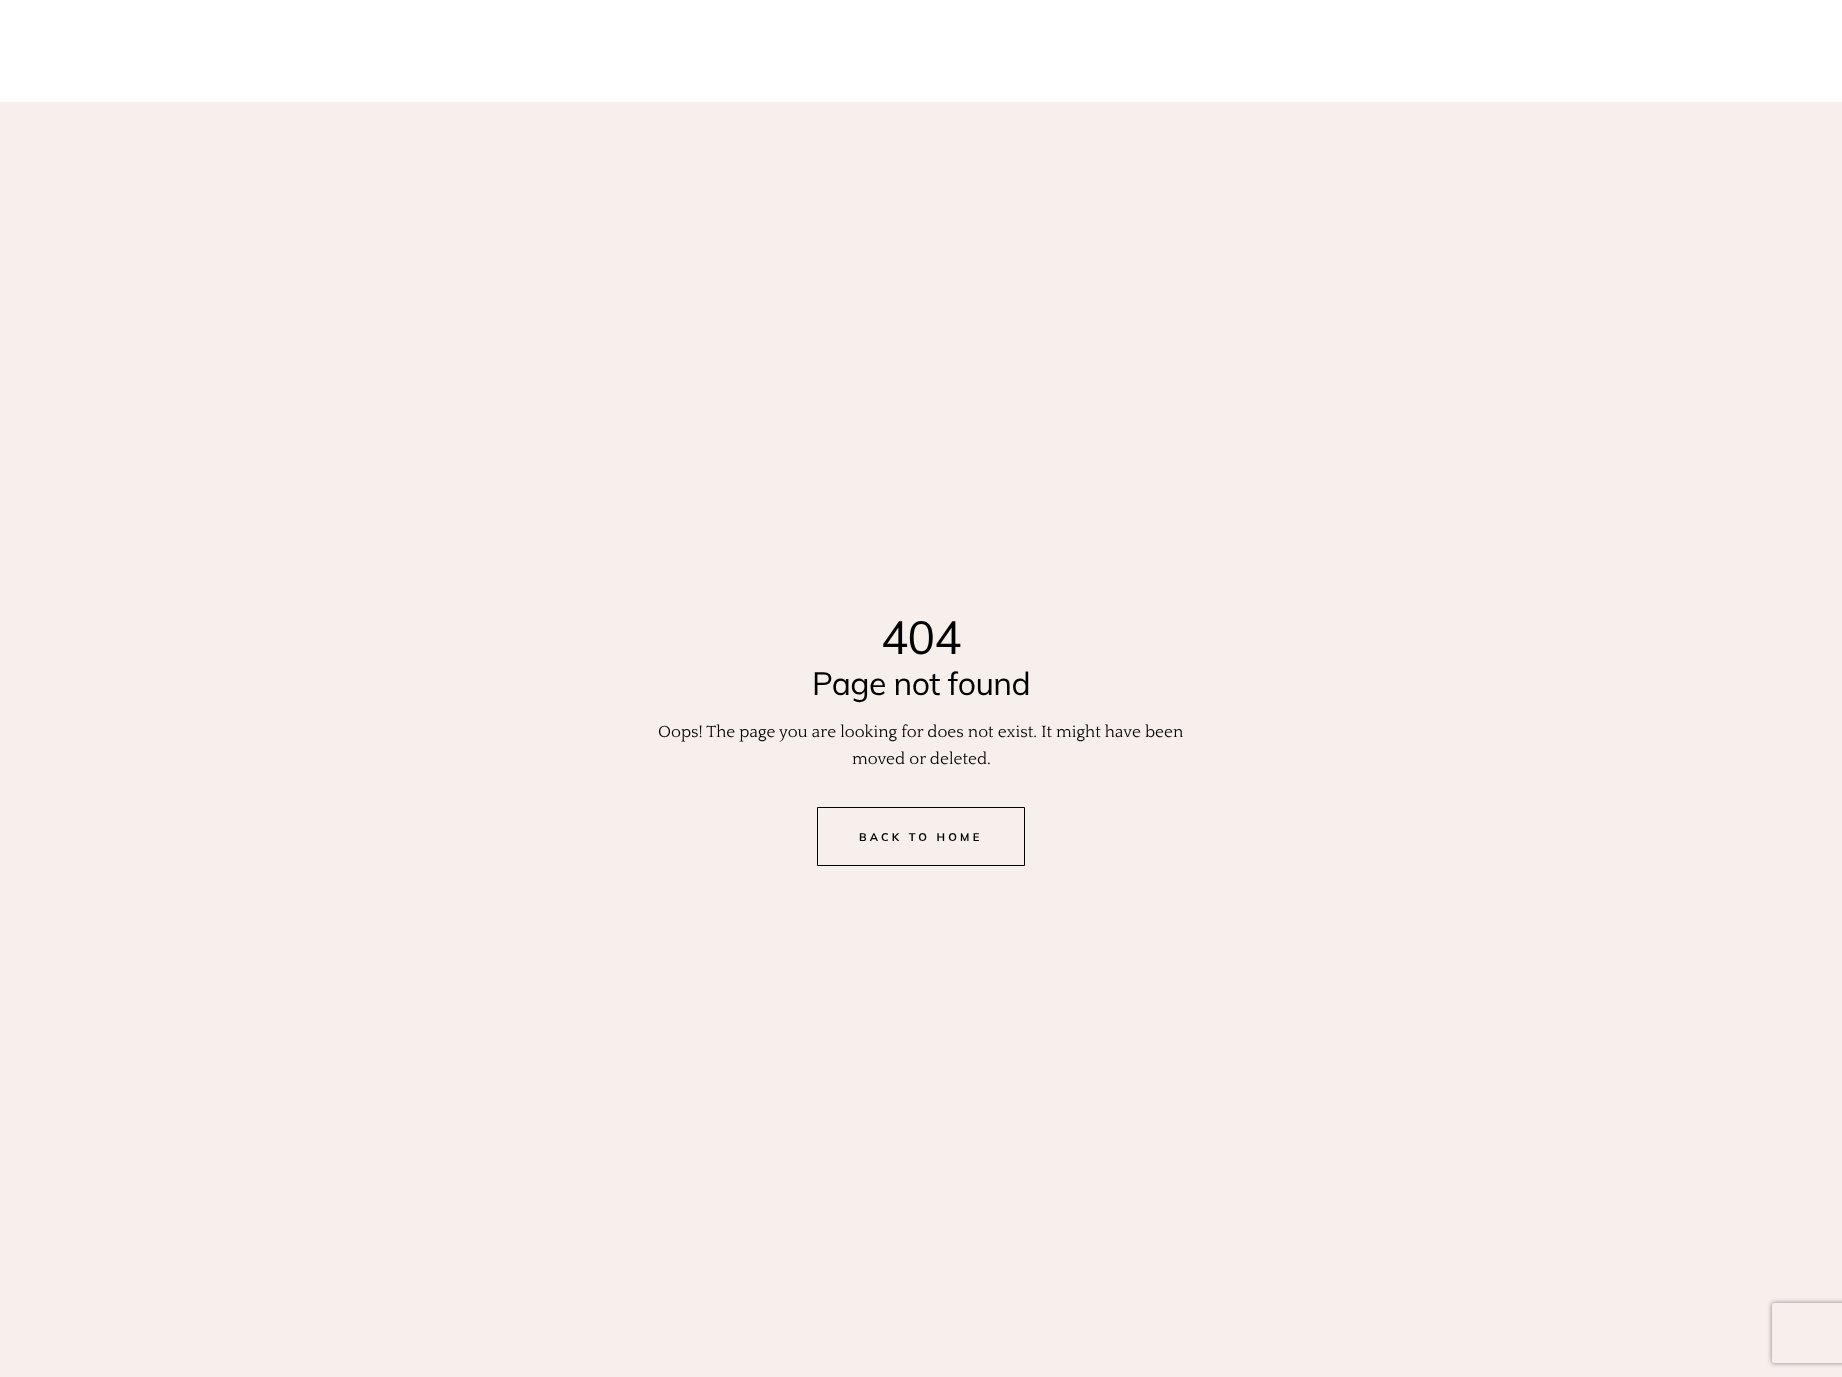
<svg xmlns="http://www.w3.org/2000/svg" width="1842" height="1377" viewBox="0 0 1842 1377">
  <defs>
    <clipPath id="clip1"><path d="M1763 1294H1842V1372H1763ZM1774 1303H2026C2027 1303 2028 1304 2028 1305V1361C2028 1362 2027 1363 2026 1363H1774C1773 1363 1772 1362 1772 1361V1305C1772 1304 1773 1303 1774 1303Z" clip-rule="evenodd"/></clipPath>
  </defs>
  <rect width="100%" height="100%" fill="#f7efec"/>
  <path d="M0 0h1842v102H0z" fill="#fff"/>
  <path d="M817.5 807.5h207v58H817.5z" fill="none" stroke="#000"/>
  <g clip-path="url(#clip1)">
    <rect x="1772" y="1303" width="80" height="60" rx="2" fill="#808080" filter="blur(2.5px)"/>
  </g>
  <text x="881" y="654" font-family="Muli" font-size="46" letter-spacing="-1" fill="#000">404</text>
  <text x="812" y="695" font-family="Muli" font-size="32" letter-spacing="-0.6" fill="#000">Page not found</text>
  <g font-family="Quattrocento" font-size="17" fill="#000">
    <text x="658" y="737">Oops! The page you are looking for does not exist. It might have been</text>
    <text x="852" y="764">moved or deleted.</text>
  </g>
  <text x="859" y="841" font-family="Muli" font-size="11" font-weight="bold" letter-spacing="3.25" fill="#000">BACK TO HOME</text>
</svg>
